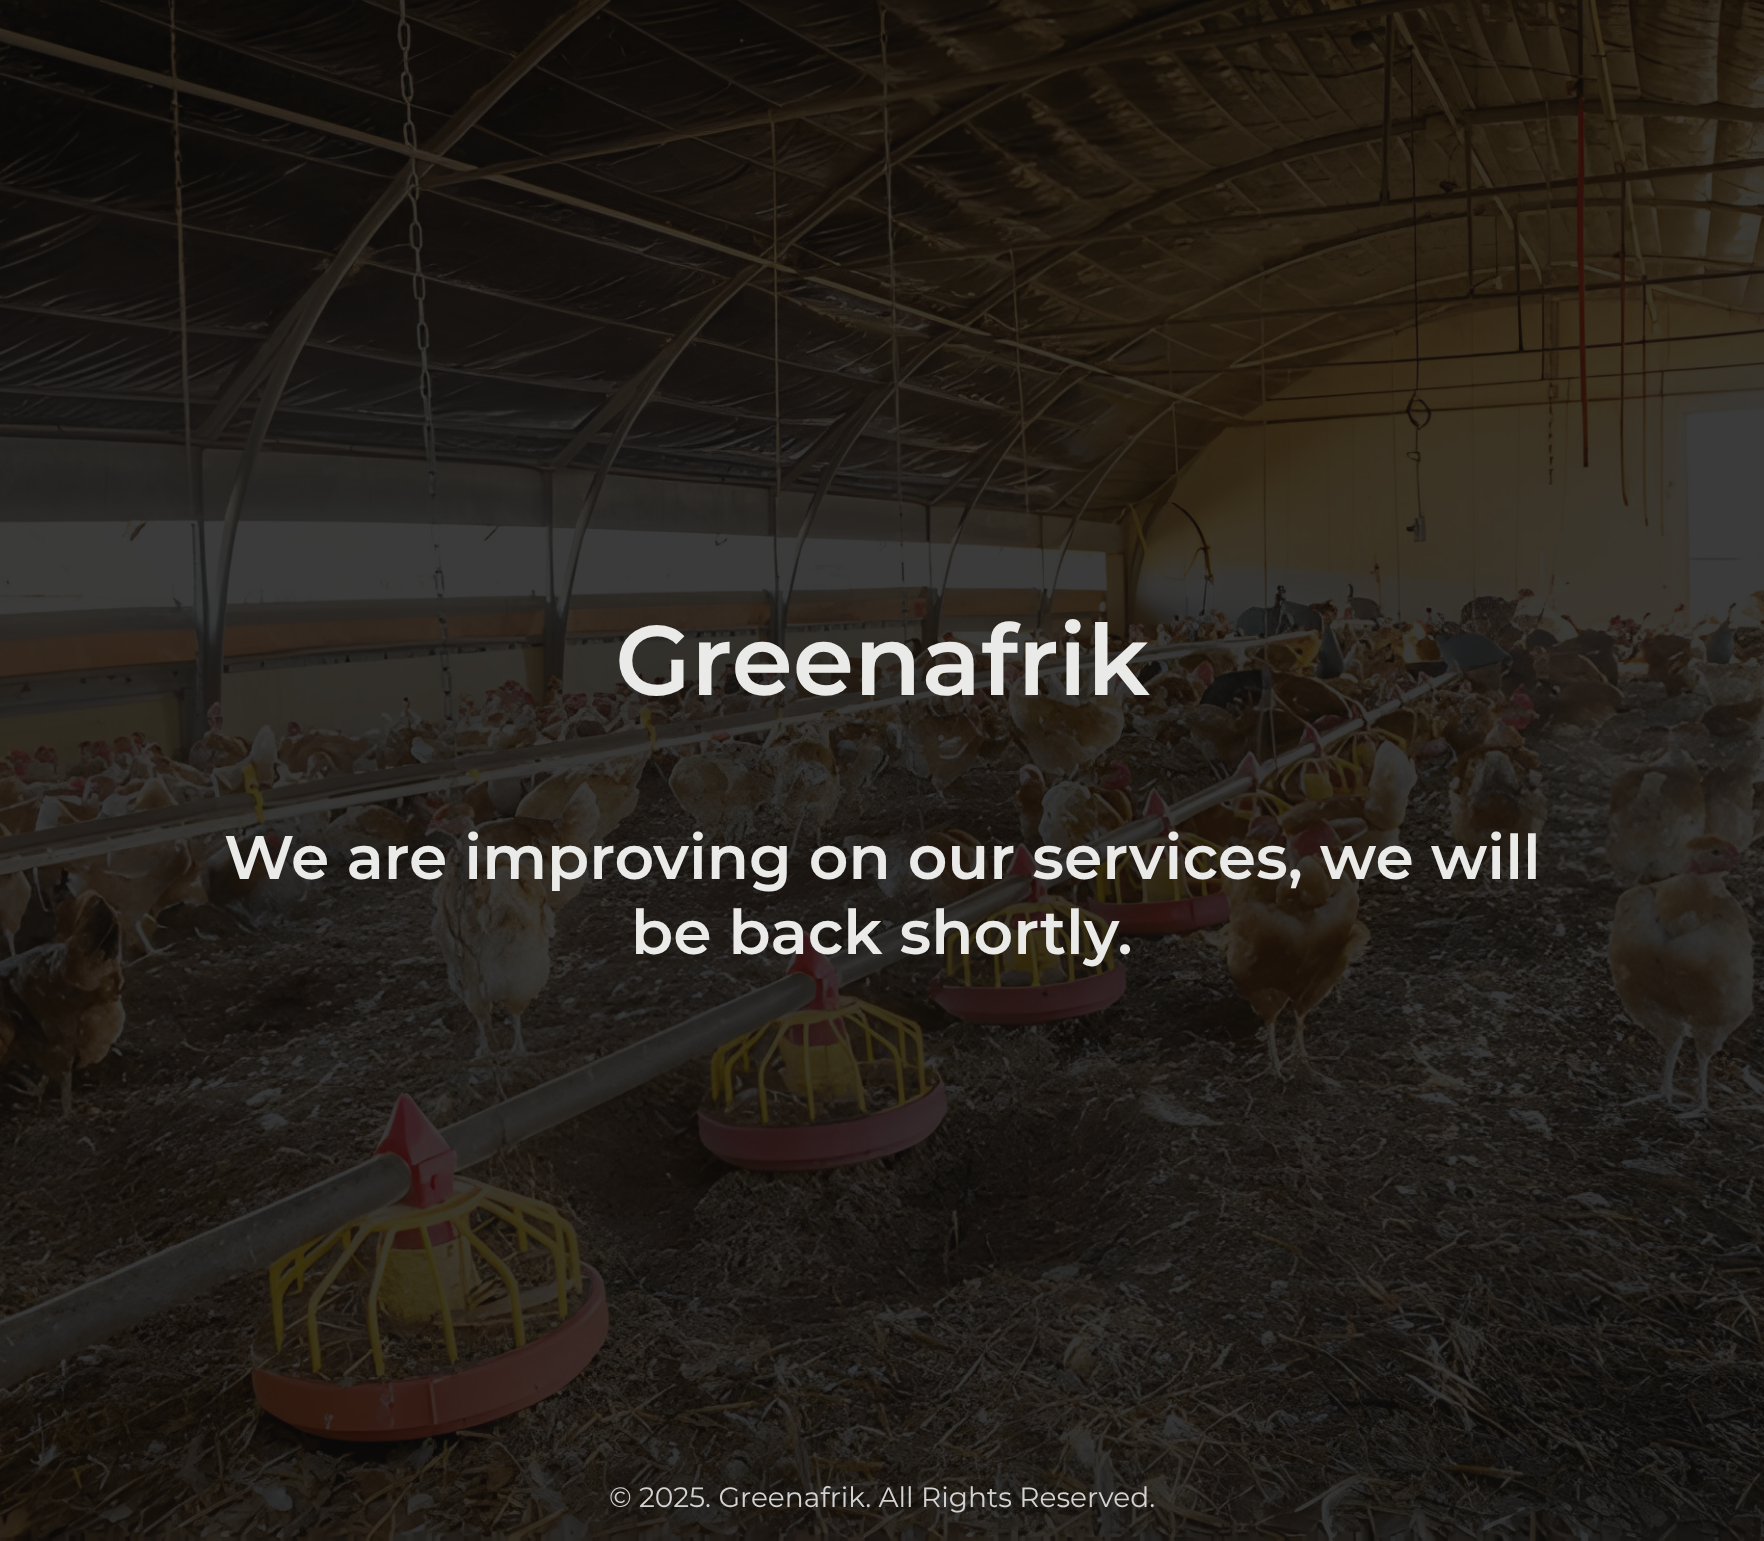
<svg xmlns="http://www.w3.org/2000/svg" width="1764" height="1541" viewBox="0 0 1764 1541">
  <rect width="100%" height="100%" fill="#fff"/>
  <image x="0" y="0" width="1764" height="1541" href="img/1.png"/>
  <text x="615" y="695" font-family="Montserrat" font-size="98.5" font-weight="600" fill="#eaeae9">Greenafrik</text>
  <g font-family="Montserrat" font-size="61.6" font-weight="600" fill="#eaeae9">
    <text x="224" y="879">We are improving on our services, we will</text>
    <text x="631" y="954">be back shortly.</text>
  </g>
  <text x="609" y="1507" font-family="Montserrat" font-size="28" fill="#d2d2d2">© 2025. Greenafrik. All Rights Reserved.</text>
</svg>
